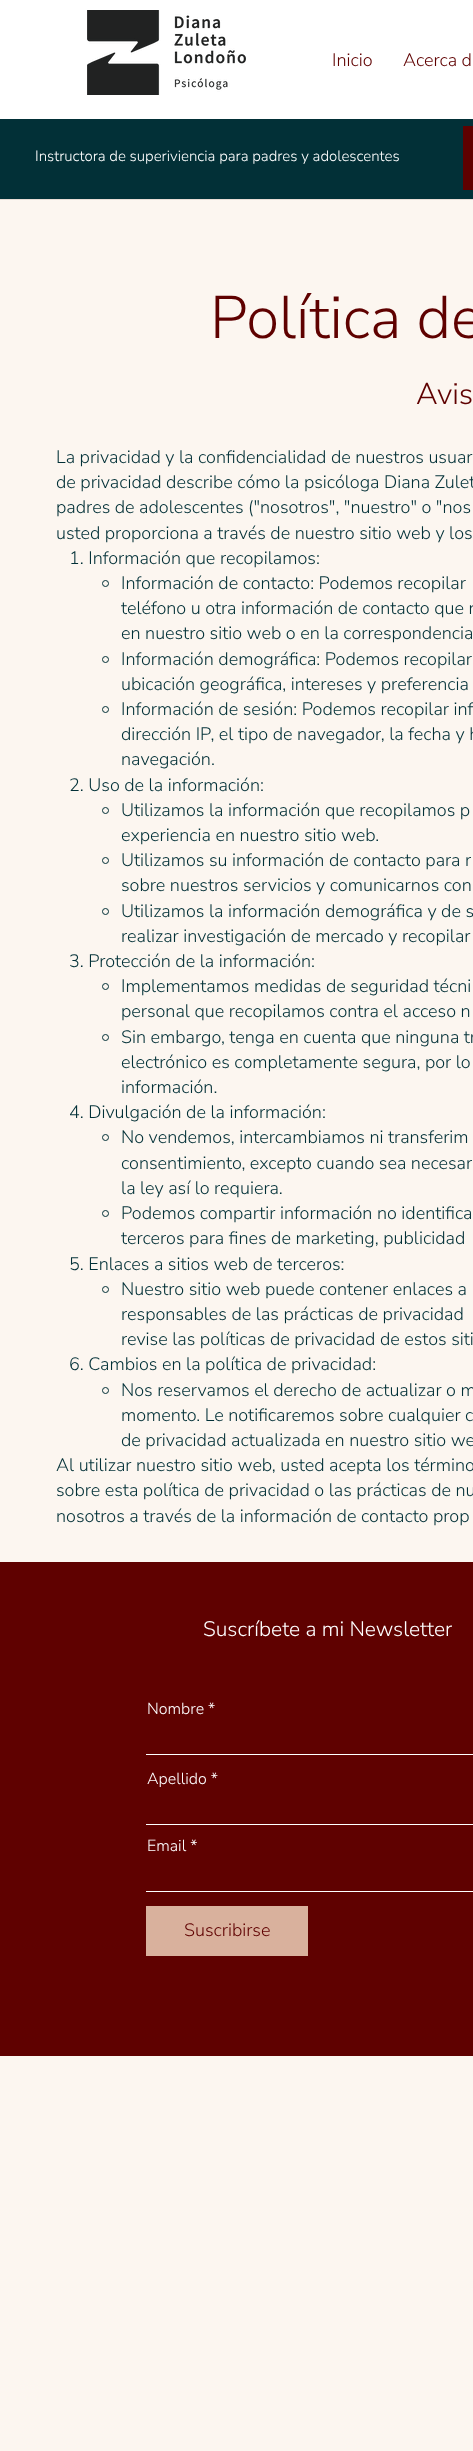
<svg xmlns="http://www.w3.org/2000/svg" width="473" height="2451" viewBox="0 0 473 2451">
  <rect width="100%" height="100%" fill="#fcf6f0"/>
  <path d="M0 0h473v119H0z" fill="#fff"/>
  <image x="87" y="10" width="159" height="85" href="img/1.png"/>
  <path d="M0 119h473v80H0z" fill="#023037"/>
  <path d="M463 126h10v64H463z" fill="#5f0100"/>
  <path d="M0 199h473v1H0z" fill="#e8dcd5"/>
  <circle cx="105.5" cy="583.5" r="3" fill="none" stroke="#023037"/>
  <circle cx="105.5" cy="659.5" r="3" fill="none" stroke="#023037"/>
  <circle cx="105.5" cy="709.5" r="3" fill="none" stroke="#023037"/>
  <circle cx="105.5" cy="810.5" r="3" fill="none" stroke="#023037"/>
  <circle cx="105.5" cy="860.5" r="3" fill="none" stroke="#023037"/>
  <circle cx="105.5" cy="911.5" r="3" fill="none" stroke="#023037"/>
  <circle cx="105.5" cy="986.5" r="3" fill="none" stroke="#023037"/>
  <circle cx="105.5" cy="1037.5" r="3" fill="none" stroke="#023037"/>
  <circle cx="105.5" cy="1137.5" r="3" fill="none" stroke="#023037"/>
  <circle cx="105.5" cy="1213.5" r="3" fill="none" stroke="#023037"/>
  <circle cx="105.5" cy="1289.5" r="3" fill="none" stroke="#023037"/>
  <circle cx="105.5" cy="1390.5" r="3" fill="none" stroke="#023037"/>
  <path d="M0 1562h473v494H0z" fill="#5f0100"/>
  <path d="M146 1754h327v1H146z" fill="#fff"/>
  <path d="M146 1824h327v1H146z" fill="#fff"/>
  <path d="M146 1891h327v1H146z" fill="#fff"/>
  <path d="M146 1906h162v50H146z" fill="#d9b19d"/>
  <g font-family="Nunito Sans" font-size="18" font-weight="300" fill="#5f0100">
    <text x="332" y="66">Inicio</text>
    <text x="403" y="66">Acerca d</text>
  </g>
  <text x="35" y="161" font-family="Nunito Sans" font-size="15" font-weight="300" fill="#fff">Instructora de superiviencia para padres y adolescentes</text>
  <text x="210" y="338" font-family="Nunito Sans" font-size="60" font-weight="300" fill="#5f0100">Política de</text>
  <text x="416" y="404" font-family="Nunito Sans" font-size="30" font-weight="300" fill="#5f0100">Avis</text>
  <g font-family="Nunito Sans" font-size="18" font-weight="300" fill="#023037">
    <text x="56" y="463">La privacidad y la confidencialidad de nuestros usuar</text>
    <text x="56" y="488">de privacidad describe cómo la psicóloga Diana Zulet</text>
    <text x="56" y="513">padres de adolescentes ("nosotros", "nuestro" o "nos</text>
    <text x="56" y="539">usted proporciona a través de nuestro sitio web y los</text>
    <text x="69" y="564">1. Información que recopilamos:</text>
    <text x="121" y="589">Información de contacto: Podemos recopilar</text>
    <text x="121" y="614">teléfono u otra información de contacto que n</text>
    <text x="121" y="639">en nuestro sitio web o en la correspondencia</text>
    <text x="121" y="665">Información demográfica: Podemos recopilar</text>
    <text x="121" y="690">ubicación geográfica, intereses y preferencia</text>
    <text x="121" y="715">Información de sesión: Podemos recopilar inf</text>
    <text x="121" y="740">dirección IP, el tipo de navegador, la fecha y h</text>
    <text x="121" y="765">navegación.</text>
    <text x="69" y="791">2. Uso de la información:</text>
    <text x="121" y="816">Utilizamos la información que recopilamos p</text>
    <text x="121" y="841">experiencia en nuestro sitio web.</text>
    <text x="121" y="866">Utilizamos su información de contacto para r</text>
    <text x="121" y="891">sobre nuestros servicios y comunicarnos con</text>
    <text x="121" y="917">Utilizamos la información demográfica y de s</text>
    <text x="121" y="942">realizar investigación de mercado y recopilar</text>
    <text x="69" y="967">3. Protección de la información:</text>
    <text x="121" y="992">Implementamos medidas de seguridad técni</text>
    <text x="121" y="1017">personal que recopilamos contra el acceso n</text>
    <text x="121" y="1043">Sin embargo, tenga en cuenta que ninguna tr</text>
    <text x="121" y="1068">electrónico es completamente segura, por lo</text>
    <text x="121" y="1093">información.</text>
    <text x="69" y="1118">4. Divulgación de la información:</text>
    <text x="121" y="1143">No vendemos, intercambiamos ni transferim</text>
    <text x="121" y="1169">consentimiento, excepto cuando sea necesar</text>
    <text x="121" y="1194">la ley así lo requiera.</text>
    <text x="121" y="1219">Podemos compartir información no identifica</text>
    <text x="121" y="1244">terceros para fines de marketing, publicidad</text>
    <text x="69" y="1270">5. Enlaces a sitios web de terceros:</text>
    <text x="121" y="1295">Nuestro sitio web puede contener enlaces a</text>
    <text x="121" y="1320">responsables de las prácticas de privacidad</text>
    <text x="121" y="1345">revise las políticas de privacidad de estos siti</text>
    <text x="69" y="1370">6. Cambios en la política de privacidad:</text>
    <text x="121" y="1396">Nos reservamos el derecho de actualizar o m</text>
    <text x="121" y="1421">momento. Le notificaremos sobre cualquier c</text>
    <text x="121" y="1446">de privacidad actualizada en nuestro sitio we</text>
    <text x="56" y="1471">Al utilizar nuestro sitio web, usted acepta los término</text>
    <text x="56" y="1496">sobre esta política de privacidad o las prácticas de nu</text>
    <text x="56" y="1522">nosotros a través de la información de contacto prop</text>
  </g>
  <text x="203" y="1636" font-family="Nunito Sans" font-size="21" font-weight="300" fill="#fff">Suscríbete a mi Newsletter</text>
  <g font-family="Nunito Sans" font-size="16" font-weight="300" fill="#fff">
    <text x="147" y="1714">Nombre *</text>
    <text x="147" y="1784">Apellido *</text>
    <text x="147" y="1851">Email *</text>
  </g>
  <text x="184" y="1936" font-family="Nunito Sans" font-size="18" font-weight="300" fill="#5f0100">Suscribirse</text>
</svg>
